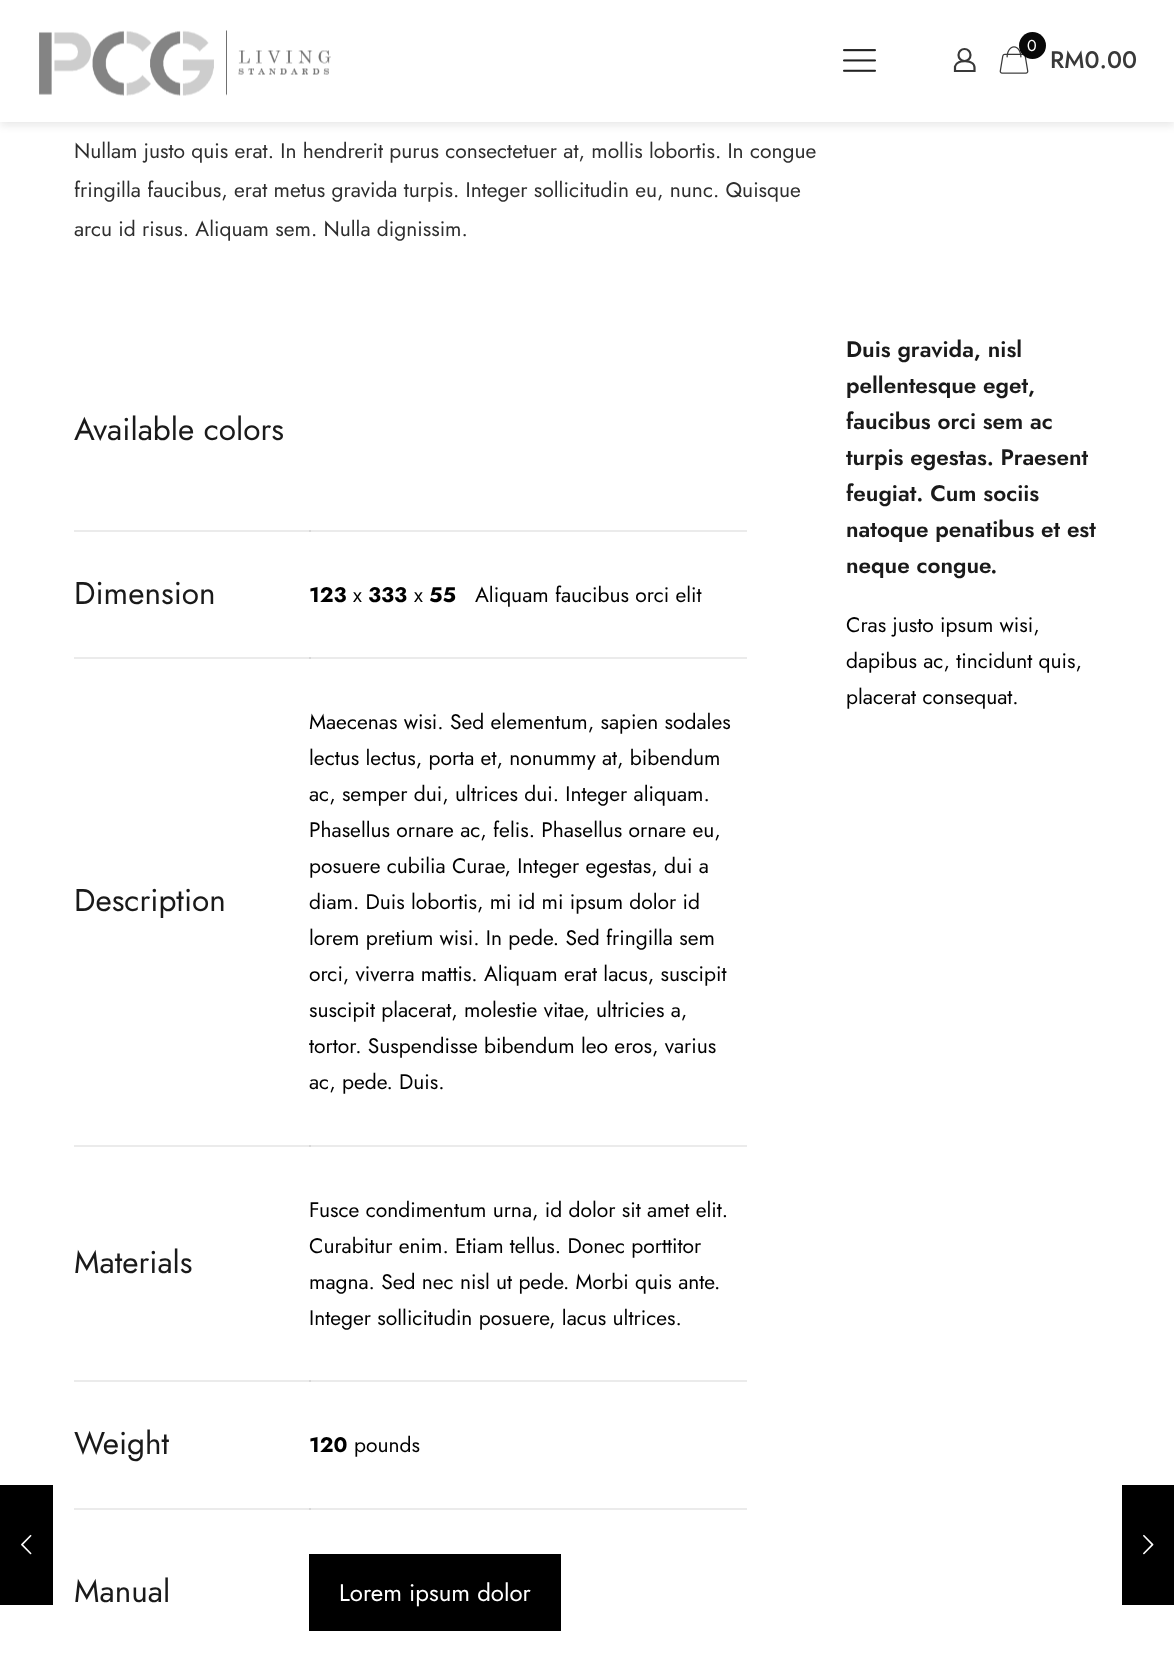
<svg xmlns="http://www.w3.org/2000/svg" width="1174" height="1664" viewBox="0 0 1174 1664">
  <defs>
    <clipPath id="clip1"><path d="M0 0H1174V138H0ZM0 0H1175V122H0Z" clip-rule="evenodd"/></clipPath>
  </defs>
  <rect width="100%" height="100%" fill="#fff"/>
  <path d="M74 530h673v2H74z" fill="#ebebeb"/>
  <path d="M74 657h673v2H74z" fill="#ebebeb"/>
  <path d="M74 1145h673v2H74z" fill="#ebebeb"/>
  <path d="M74 1380h673v2H74z" fill="#ebebeb"/>
  <path d="M74 1508h673v2H74z" fill="#ebebeb"/>
  <path d="M0 1485h53v120H0z" fill="#000"/>
  <image x="21" y="1534" width="11" height="21" href="img/1.png"/>
  <g clip-path="url(#clip1)">
    <path d="M0 3h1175v122H0z" fill="#0808081a" filter="blur(4px)"/>
  </g>
  <path d="M0 121h1174v1H0z" fill="#fffffff7"/>
  <image x="39" y="30" width="292" height="66" href="img/2.png"/>
  <image x="843" y="49" width="33" height="23" href="img/3.png"/>
  <circle cx="964.5" cy="55" r="6" fill="none" stroke="#393939" stroke-width="2.2"/>
  <path d="M974.5 67.5V71H955V66.5C957 59 974.5 59.5 974.5 67.5Z" fill="none" stroke="#393939" stroke-width="2.2"/>
  <image x="999" y="46" width="30" height="28" href="img/4.png"/>
  <circle cx="1032.5" cy="45.5" r="13.5" fill="#080808"/>
  <path d="M309 530h2v2H309z" fill="#d8d8d8"/>
  <path d="M309 657h2v2H309z" fill="#d8d8d8"/>
  <path d="M309 1145h2v2H309z" fill="#d8d8d8"/>
  <path d="M309 1380h2v2H309z" fill="#d8d8d8"/>
  <path d="M309 1508h2v2H309z" fill="#d8d8d8"/>
  <path d="M309 1554h252v77H309z" fill="#000"/>
  <path d="M1122 1485h52v120H1122z" fill="#000"/>
  <image x="1143" y="1534" width="11" height="21" href="img/5.png"/>
  <text x="1027" y="51" font-family="Jost" font-size="16" fill="#fff">0</text>
  <text x="1050" y="68" font-family="Jost" font-size="24" font-weight="500" fill="#393939">RM0.00</text>
  <g font-family="Jost" font-size="21" fill="#2e2e2e">
    <text x="74" y="158">Nullam justo quis erat. In hendrerit purus consectetuer at, mollis lobortis. In congue</text>
    <text x="74" y="197">fringilla faucibus, erat metus gravida turpis. Integer sollicitudin eu, nunc. Quisque</text>
    <text x="74" y="236">arcu id risus. Aliquam sem. Nulla dignissim.</text>
  </g>
  <g font-family="Jost" font-size="31.5" fill="#1a1a1a">
    <text x="74" y="440">Available colors</text>
    <text x="74" y="604">Dimension</text>
  </g>
  <text x="309" y="602" font-family="Jost" font-size="21" font-weight="bold" fill="#000">123</text>
  <text x="353" y="602" font-family="Jost" font-size="21" fill="#000">x</text>
  <text x="368" y="602" font-family="Jost" font-size="21" font-weight="bold" fill="#000">333</text>
  <text x="414" y="602" font-family="Jost" font-size="21" fill="#000">x</text>
  <text x="429" y="602" font-family="Jost" font-size="21" font-weight="bold" fill="#000">55</text>
  <text x="475" y="602" font-family="Jost" font-size="21" fill="#000">Aliquam faucibus orci elit</text>
  <text x="74" y="911" font-family="Jost" font-size="31.5" fill="#1a1a1a">Description</text>
  <g font-family="Jost" font-size="21" fill="#000">
    <text x="309" y="729">Maecenas wisi. Sed elementum, sapien sodales</text>
    <text x="309" y="765">lectus lectus, porta et, nonummy at, bibendum</text>
    <text x="309" y="801">ac, semper dui, ultrices dui. Integer aliquam.</text>
    <text x="309" y="837">Phasellus ornare ac, felis. Phasellus ornare eu,</text>
    <text x="309" y="873">posuere cubilia Curae, Integer egestas, dui a</text>
    <text x="309" y="909">diam. Duis lobortis, mi id mi ipsum dolor id</text>
    <text x="309" y="945">lorem pretium wisi. In pede. Sed fringilla sem</text>
    <text x="309" y="981">orci, viverra mattis. Aliquam erat lacus, suscipit</text>
    <text x="309" y="1017">suscipit placerat, molestie vitae, ultricies a,</text>
    <text x="309" y="1053">tortor. Suspendisse bibendum leo eros, varius</text>
    <text x="309" y="1089">ac, pede. Duis.</text>
  </g>
  <text x="74" y="1273" font-family="Jost" font-size="31.5" fill="#1a1a1a">Materials</text>
  <g font-family="Jost" font-size="21" fill="#000">
    <text x="309" y="1217">Fusce condimentum urna, id dolor sit amet elit.</text>
    <text x="309" y="1253">Curabitur enim. Etiam tellus. Donec porttitor</text>
    <text x="309" y="1289">magna. Sed nec nisl ut pede. Morbi quis ante.</text>
    <text x="309" y="1325">Integer sollicitudin posuere, lacus ultrices.</text>
  </g>
  <text x="74" y="1454" font-family="Jost" font-size="31.5" fill="#1a1a1a">Weight</text>
  <text x="309" y="1452" font-family="Jost" font-size="21" font-weight="bold" fill="#000">120</text>
  <text x="354" y="1452" font-family="Jost" font-size="21" fill="#000">pounds</text>
  <text x="74" y="1602" font-family="Jost" font-size="31.5" fill="#1a1a1a">Manual</text>
  <text x="339" y="1601" font-family="Jost" font-size="24" fill="#fff">Lorem ipsum dolor</text>
  <g font-family="Jost" font-size="22.5" font-weight="600" fill="#1a1a1a">
    <text x="846" y="357">Duis gravida, nisl</text>
    <text x="846" y="393">pellentesque eget,</text>
    <text x="846" y="429">faucibus orci sem ac</text>
    <text x="846" y="465">turpis egestas. Praesent</text>
    <text x="846" y="501">feugiat. Cum sociis</text>
    <text x="846" y="537">natoque penatibus et est</text>
    <text x="846" y="573">neque congue.</text>
  </g>
  <g font-family="Jost" font-size="21" fill="#000">
    <text x="846" y="632">Cras justo ipsum wisi,</text>
    <text x="846" y="668">dapibus ac, tincidunt quis,</text>
    <text x="846" y="704">placerat consequat.</text>
  </g>
</svg>
